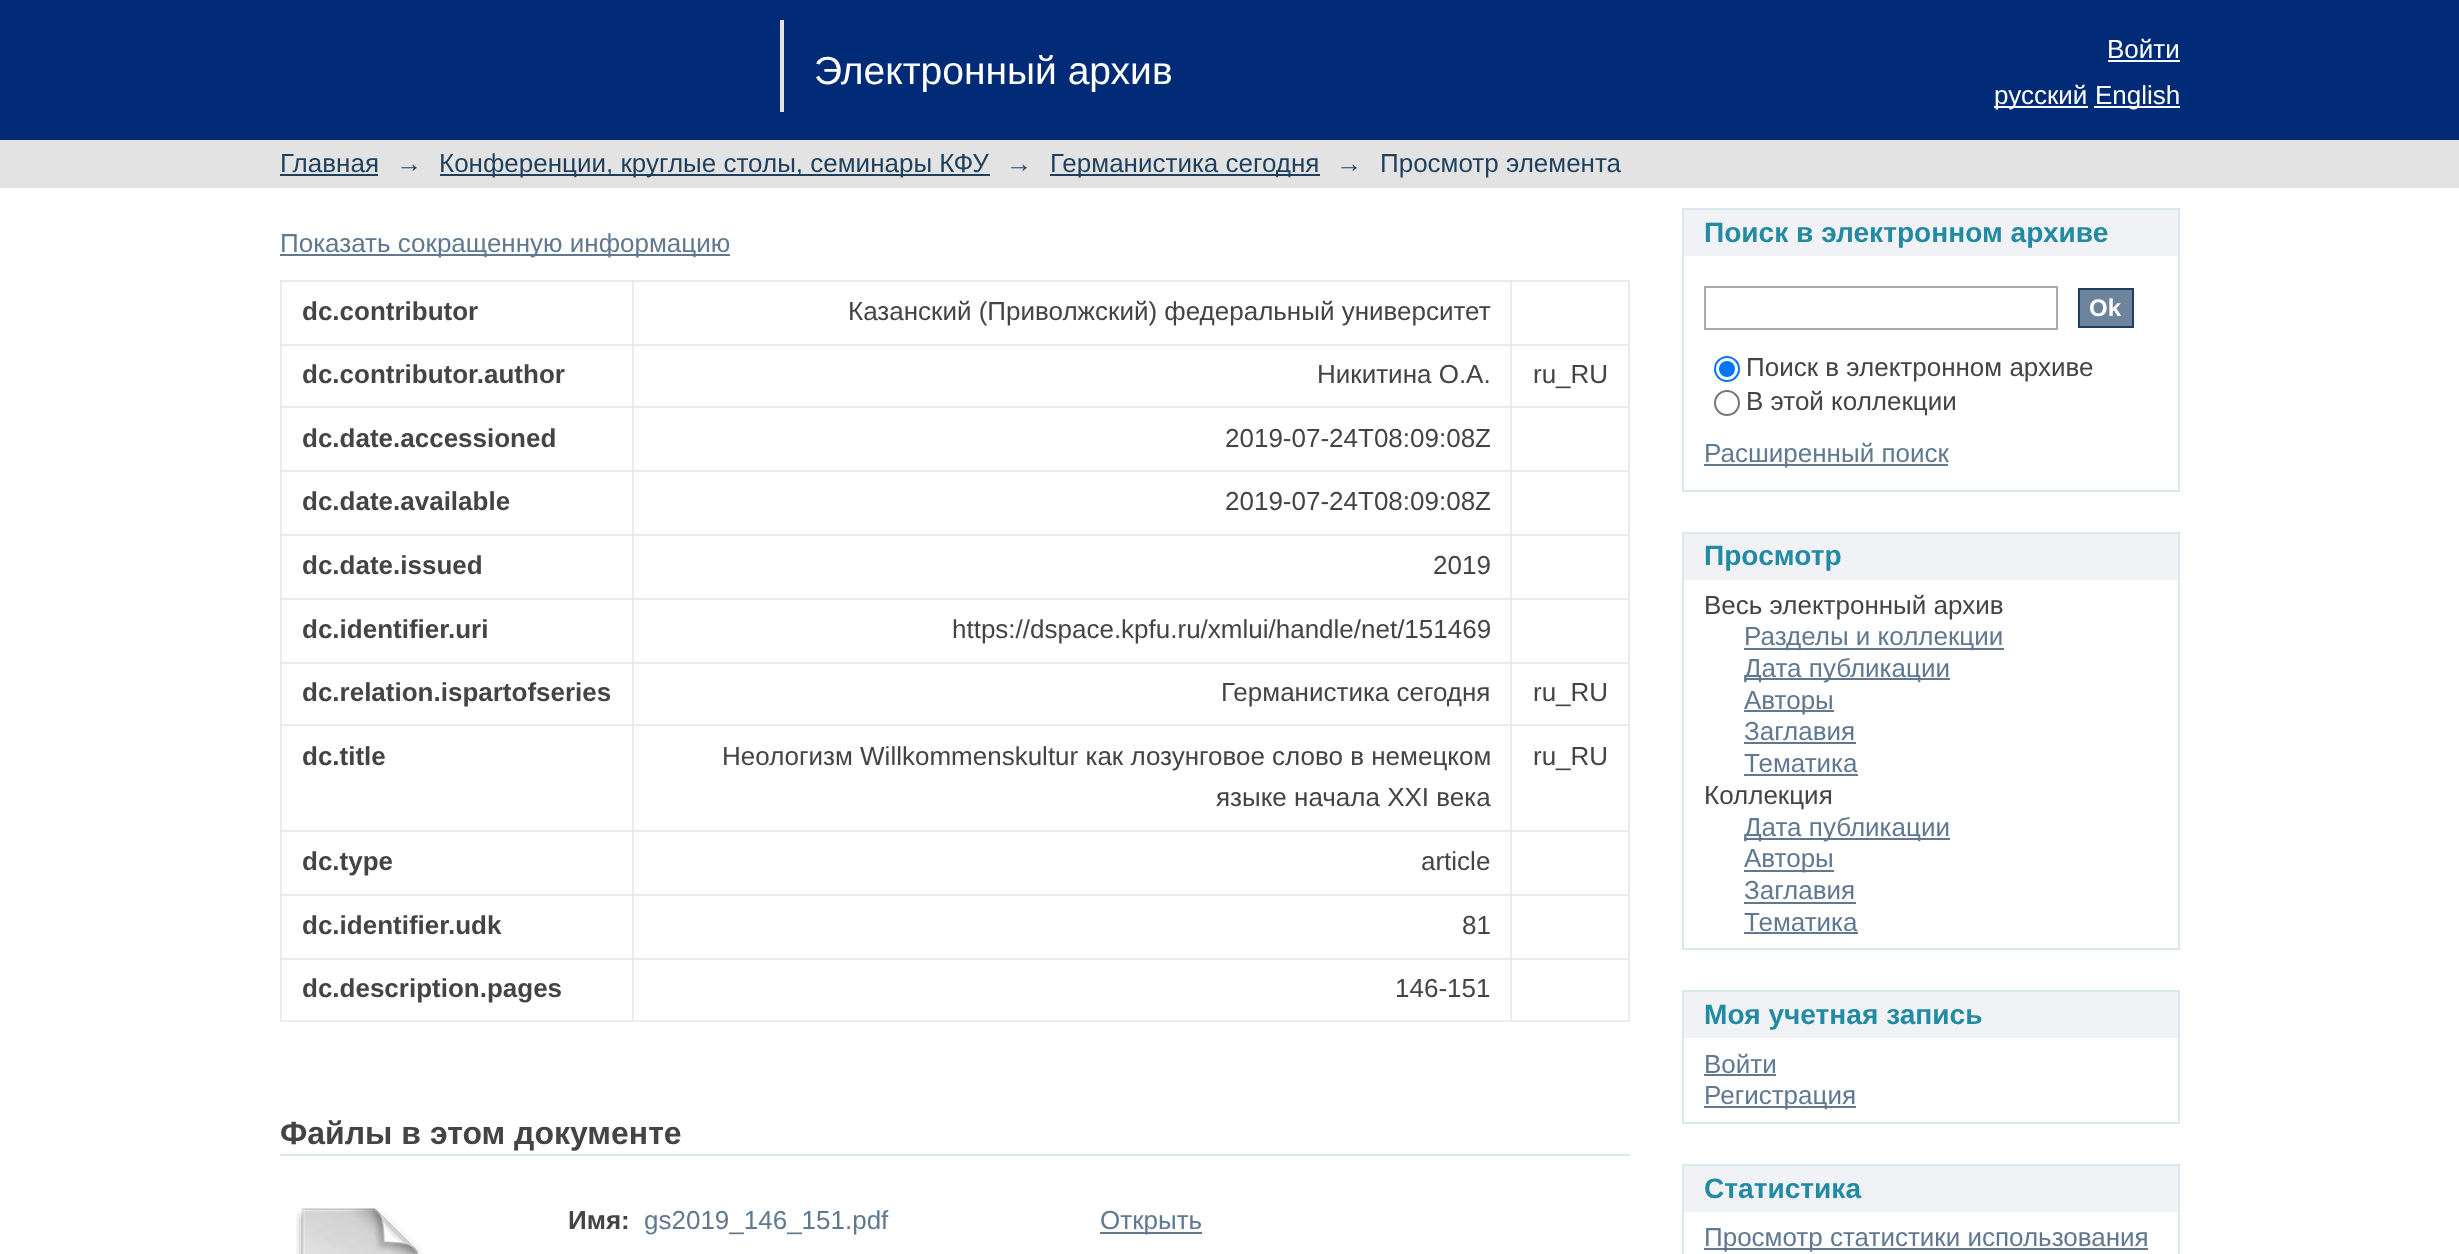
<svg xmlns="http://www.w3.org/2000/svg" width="2459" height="1254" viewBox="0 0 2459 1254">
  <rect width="100%" height="100%" fill="#fff"/>
  <path d="M0 0h2459v140H0z" fill="#012a77"/>
  <path d="M2108 60h72v2H2108z" fill="#fff"/>
  <path d="M780 20h4v92H780z" fill="#e3e3e3"/>
  <path d="M1994 106h94v2H1994z" fill="#fff"/>
  <path d="M2094 106h86v2H2094z" fill="#fff"/>
  <path d="M0 140h2459v48H0z" fill="#e3e3e3"/>
  <path d="M280 174h98v2H280z" fill="#1f3f5e"/>
  <path d="M440 174h550v2H440z" fill="#1f3f5e"/>
  <path d="M1050 174h270v2H1050z" fill="#1f3f5e"/>
  <path d="M280 254h450v2H280z" fill="#607890"/>
  <path d="M280 280h1350v2H280z" fill="#ebebeb"/>
  <path d="M280 344h1350v2H280z" fill="#ebebeb"/>
  <path d="M280 406h1350v2H280z" fill="#ebebeb"/>
  <path d="M280 470h1350v2H280z" fill="#ebebeb"/>
  <path d="M280 534h1350v2H280z" fill="#ebebeb"/>
  <path d="M280 598h1350v2H280z" fill="#ebebeb"/>
  <path d="M280 662h1350v2H280z" fill="#ebebeb"/>
  <path d="M280 724h1350v2H280z" fill="#ebebeb"/>
  <path d="M280 830h1350v2H280z" fill="#ebebeb"/>
  <path d="M280 894h1350v2H280z" fill="#ebebeb"/>
  <path d="M280 958h1350v2H280z" fill="#ebebeb"/>
  <path d="M1628 958h2v64H1628z" fill="#ebebeb"/>
  <path d="M1628 894h2v66H1628z" fill="#ebebeb"/>
  <path d="M1628 830h2v66H1628z" fill="#ebebeb"/>
  <path d="M1628 724h2v108H1628z" fill="#ebebeb"/>
  <path d="M1628 662h2v64H1628z" fill="#ebebeb"/>
  <path d="M1628 598h2v66H1628z" fill="#ebebeb"/>
  <path d="M1628 534h2v66H1628z" fill="#ebebeb"/>
  <path d="M1628 470h2v66H1628z" fill="#ebebeb"/>
  <path d="M1628 406h2v66H1628z" fill="#ebebeb"/>
  <path d="M1628 344h2v64H1628z" fill="#ebebeb"/>
  <path d="M1628 280h2v66H1628z" fill="#ebebeb"/>
  <path d="M280 1020h1350v2H280z" fill="#ebebeb"/>
  <path d="M280 958h2v64H280z" fill="#ebebeb"/>
  <path d="M280 894h2v66H280z" fill="#ebebeb"/>
  <path d="M280 830h2v66H280z" fill="#ebebeb"/>
  <path d="M280 724h2v108H280z" fill="#ebebeb"/>
  <path d="M280 662h2v64H280z" fill="#ebebeb"/>
  <path d="M280 598h2v66H280z" fill="#ebebeb"/>
  <path d="M280 534h2v66H280z" fill="#ebebeb"/>
  <path d="M280 470h2v66H280z" fill="#ebebeb"/>
  <path d="M280 406h2v66H280z" fill="#ebebeb"/>
  <path d="M280 344h2v64H280z" fill="#ebebeb"/>
  <path d="M280 280h2v66H280z" fill="#ebebeb"/>
  <path d="M632 280h2v742H632z" fill="#ebebeb"/>
  <path d="M1510 280h2v742H1510z" fill="#ebebeb"/>
  <path d="M280 1154h1350v2H280z" fill="#d8e8eb"/>
  <image x="296" y="1208" width="127" height="46" href="img/1.png"/>
  <path d="M1100 1232h102v2H1100z" fill="#607890"/>
  <path d="M1684 210h494v46H1684z" fill="#f0f2f5"/>
  <path d="M1682 208h498v2H1682z" fill="#d8e8eb"/>
  <path d="M2178 208h2v284H2178z" fill="#d8e8eb"/>
  <path d="M1682 208h2v48H1682z" fill="#d8e8eb"/>
  <path d="M1682 490h498v2H1682z" fill="#d8e8eb"/>
  <path d="M1682 256h2v236H1682z" fill="#d8e8eb"/>
  <path d="M1705 287h352v42H1705z" fill="none" stroke="#aaa" stroke-width="2"/>
  <path d="M2079 289h54v38H2079z" fill="#6d859c" stroke="#1f3f5e" stroke-width="2"/>
  <circle cx="1727" cy="369" r="12" fill="none" stroke="#0075ff" stroke-width="2"/>
  <circle cx="1727" cy="369" r="8" fill="#0075ff"/>
  <circle cx="1727" cy="403" r="12" fill="none" stroke="#767676" stroke-width="2"/>
  <path d="M1704 464h244v2H1704z" fill="#607890"/>
  <path d="M1684 534h494v46H1684z" fill="#f0f2f5"/>
  <path d="M1682 532h498v2H1682z" fill="#d8e8eb"/>
  <path d="M2178 532h2v418H2178z" fill="#d8e8eb"/>
  <path d="M1682 532h2v48H1682z" fill="#d8e8eb"/>
  <path d="M1682 948h498v2H1682z" fill="#d8e8eb"/>
  <path d="M1682 580h2v370H1682z" fill="#d8e8eb"/>
  <path d="M1744 648h260v2H1744z" fill="#607890"/>
  <path d="M1744 678h206v2H1744z" fill="#607890"/>
  <path d="M1744 710h90v2H1744z" fill="#607890"/>
  <path d="M1744 742h112v2H1744z" fill="#607890"/>
  <path d="M1744 774h114v2H1744z" fill="#607890"/>
  <path d="M1744 838h206v2H1744z" fill="#607890"/>
  <path d="M1744 870h90v2H1744z" fill="#607890"/>
  <path d="M1744 902h112v2H1744z" fill="#607890"/>
  <path d="M1744 932h114v2H1744z" fill="#607890"/>
  <path d="M1684 992h494v46H1684z" fill="#f0f2f5"/>
  <path d="M1682 990h498v2H1682z" fill="#d8e8eb"/>
  <path d="M2178 990h2v134H2178z" fill="#d8e8eb"/>
  <path d="M1682 990h2v48H1682z" fill="#d8e8eb"/>
  <path d="M1682 1122h498v2H1682z" fill="#d8e8eb"/>
  <path d="M1682 1038h2v86H1682z" fill="#d8e8eb"/>
  <path d="M1704 1074h72v2H1704z" fill="#607890"/>
  <path d="M1704 1106h152v2H1704z" fill="#607890"/>
  <path d="M1684 1166h494v46H1684z" fill="#f0f2f5"/>
  <path d="M1682 1164h498v2H1682z" fill="#d8e8eb"/>
  <path d="M2178 1164h2v90H2178z" fill="#d8e8eb"/>
  <path d="M1682 1164h2v90H1682z" fill="#d8e8eb"/>
  <path d="M1704 1248h444v2H1704z" fill="#607890"/>
  <text x="2107" y="58" font-family="Liberation Sans" font-size="26" fill="#fff">Войти</text>
  <text x="814" y="84" font-family="Liberation Sans" font-size="39" fill="#fff">Электронный архив</text>
  <g font-family="Liberation Sans" font-size="26" fill="#fff">
    <text x="1994" y="104">русский</text>
    <text x="2095" y="104">English</text>
  </g>
  <g font-family="Liberation Sans" font-size="26" fill="#1f3f5e">
    <text x="280" y="172">Главная</text>
    <text x="396" y="172">→</text>
    <text x="439" y="172">Конференции, круглые столы, семинары КФУ</text>
    <text x="1006" y="172">→</text>
    <text x="1050" y="172">Германистика сегодня</text>
    <text x="1336" y="172">→</text>
    <text x="1380" y="172">Просмотр элемента</text>
  </g>
  <text x="280" y="252" font-family="Liberation Sans" font-size="26" fill="#607890">Показать сокращенную информацию</text>
  <text x="302" y="320" font-family="Liberation Sans" font-size="26" font-weight="bold" fill="#444">dc.contributor</text>
  <text x="848" y="320" font-family="Liberation Sans" font-size="26" fill="#444">Казанский (Приволжский) федеральный университет</text>
  <text x="302" y="383" font-family="Liberation Sans" font-size="26" font-weight="bold" fill="#444">dc.contributor.author</text>
  <g font-family="Liberation Sans" font-size="26" fill="#444">
    <text x="1317" y="383">Никитина О.А.</text>
    <text x="1533" y="383">ru_RU</text>
  </g>
  <text x="302" y="447" font-family="Liberation Sans" font-size="26" font-weight="bold" fill="#444">dc.date.accessioned</text>
  <text x="1225" y="447" font-family="Liberation Sans" font-size="26" fill="#444">2019-07-24T08:09:08Z</text>
  <text x="302" y="510" font-family="Liberation Sans" font-size="26" font-weight="bold" fill="#444">dc.date.available</text>
  <text x="1225" y="510" font-family="Liberation Sans" font-size="26" fill="#444">2019-07-24T08:09:08Z</text>
  <text x="302" y="574" font-family="Liberation Sans" font-size="26" font-weight="bold" fill="#444">dc.date.issued</text>
  <text x="1433" y="574" font-family="Liberation Sans" font-size="26" fill="#444">2019</text>
  <text x="302" y="638" font-family="Liberation Sans" font-size="26" font-weight="bold" fill="#444">dc.identifier.uri</text>
  <text x="952" y="638" font-family="Liberation Sans" font-size="26" fill="#444">https://dspace.kpfu.ru/xmlui/handle/net/151469</text>
  <text x="302" y="701" font-family="Liberation Sans" font-size="26" font-weight="bold" fill="#444">dc.relation.ispartofseries</text>
  <g font-family="Liberation Sans" font-size="26" fill="#444">
    <text x="1221" y="701">Германистика сегодня</text>
    <text x="1533" y="701">ru_RU</text>
  </g>
  <text x="302" y="765" font-family="Liberation Sans" font-size="26" font-weight="bold" fill="#444">dc.title</text>
  <g font-family="Liberation Sans" font-size="26" fill="#444">
    <text x="722" y="765">Неологизм Willkommenskultur как лозунговое слово в немецком</text>
    <text x="1216" y="806">языке начала XXI века</text>
    <text x="1533" y="765">ru_RU</text>
  </g>
  <text x="302" y="870" font-family="Liberation Sans" font-size="26" font-weight="bold" fill="#444">dc.type</text>
  <text x="1421" y="870" font-family="Liberation Sans" font-size="26" fill="#444">article</text>
  <text x="302" y="934" font-family="Liberation Sans" font-size="26" font-weight="bold" fill="#444">dc.identifier.udk</text>
  <text x="1462" y="934" font-family="Liberation Sans" font-size="26" fill="#444">81</text>
  <text x="302" y="997" font-family="Liberation Sans" font-size="26" font-weight="bold" fill="#444">dc.description.pages</text>
  <text x="1395" y="997" font-family="Liberation Sans" font-size="26" fill="#444">146-151</text>
  <text x="280" y="1144" font-family="Liberation Sans" font-size="32" font-weight="bold" fill="#444">Файлы в этом документе</text>
  <text x="568" y="1229" font-family="Liberation Sans" font-size="26" font-weight="bold" fill="#444">Имя:</text>
  <g font-family="Liberation Sans" font-size="26" fill="#607890">
    <text x="644" y="1229">gs2019_146_151.pdf</text>
    <text x="1100" y="1229">Открыть</text>
  </g>
  <text x="1704" y="242" font-family="Liberation Sans" font-size="28.1" font-weight="bold" fill="#228aa2">Поиск в электронном архиве</text>
  <text x="2089" y="316" font-family="Liberation Sans" font-size="24" font-weight="bold" fill="#fff">Ok</text>
  <g font-family="Liberation Sans" font-size="26" fill="#444">
    <text x="1746" y="376">Поиск в электронном архиве</text>
    <text x="1746" y="410">В этой коллекции</text>
  </g>
  <text x="1704" y="462" font-family="Liberation Sans" font-size="26" fill="#607890">Расширенный поиск</text>
  <text x="1704" y="565" font-family="Liberation Sans" font-size="28.1" font-weight="bold" fill="#228aa2">Просмотр</text>
  <text x="1704" y="614" font-family="Liberation Sans" font-size="26" fill="#444">Весь электронный архив</text>
  <g font-family="Liberation Sans" font-size="26" fill="#607890">
    <text x="1744" y="645">Разделы и коллекции</text>
    <text x="1744" y="677">Дата публикации</text>
    <text x="1744" y="709">Авторы</text>
    <text x="1744" y="740">Заглавия</text>
    <text x="1744" y="772">Тематика</text>
  </g>
  <text x="1704" y="804" font-family="Liberation Sans" font-size="26" fill="#444">Коллекция</text>
  <g font-family="Liberation Sans" font-size="26" fill="#607890">
    <text x="1744" y="836">Дата публикации</text>
    <text x="1744" y="867">Авторы</text>
    <text x="1744" y="899">Заглавия</text>
    <text x="1744" y="931">Тематика</text>
  </g>
  <text x="1704" y="1024" font-family="Liberation Sans" font-size="28.1" font-weight="bold" fill="#228aa2">Моя учетная запись</text>
  <g font-family="Liberation Sans" font-size="26" fill="#607890">
    <text x="1704" y="1073">Войти</text>
    <text x="1704" y="1104">Регистрация</text>
  </g>
  <text x="1704" y="1198" font-family="Liberation Sans" font-size="28.1" font-weight="bold" fill="#228aa2">Статистика</text>
  <text x="1704" y="1246" font-family="Liberation Sans" font-size="26" fill="#607890">Просмотр статистики использования</text>
</svg>
